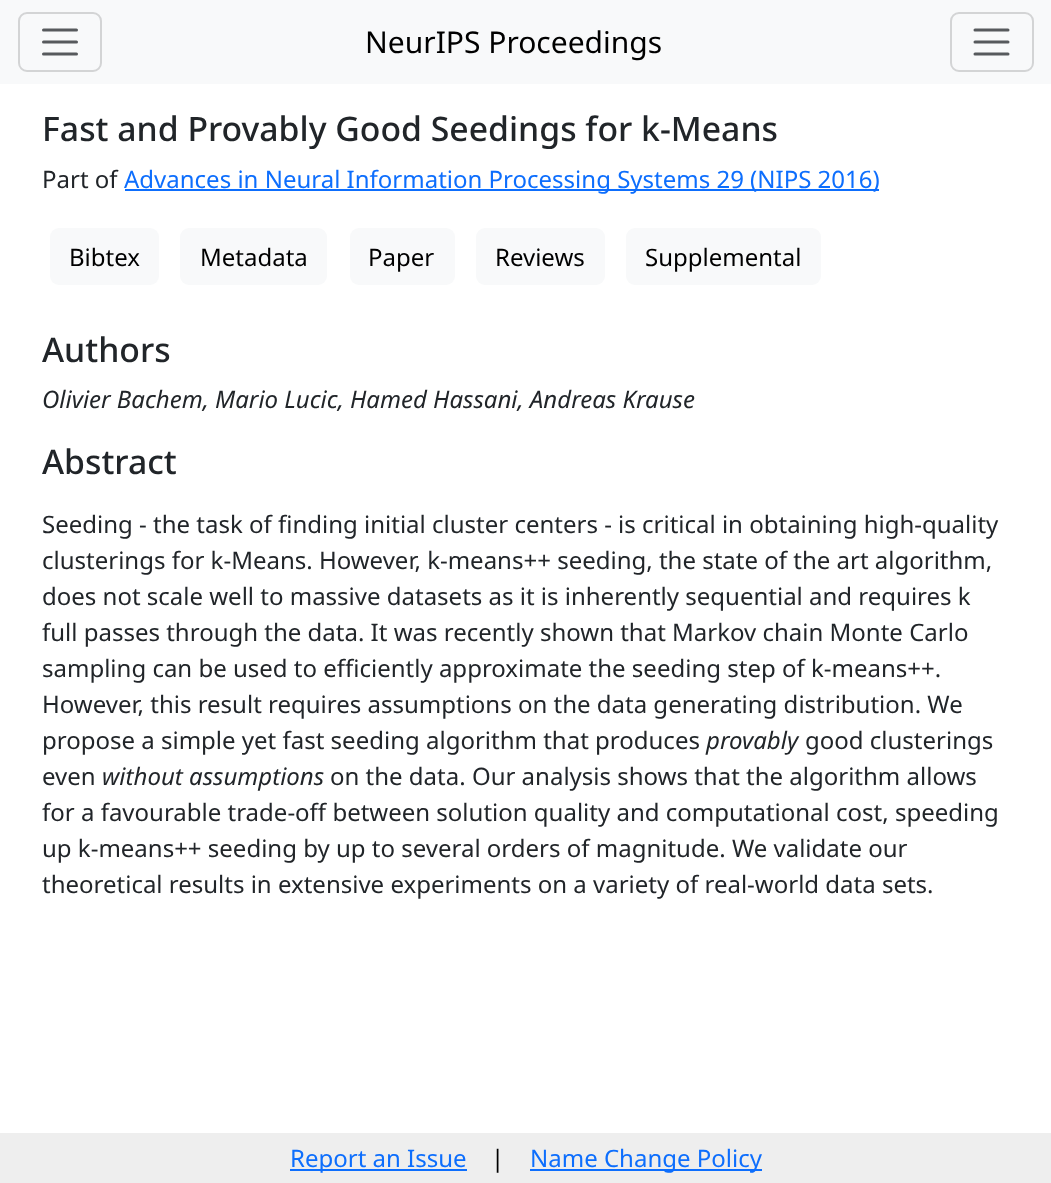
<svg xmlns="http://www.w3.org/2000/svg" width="1051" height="1183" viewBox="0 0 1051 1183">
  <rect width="100%" height="100%" fill="#fff"/>
  <path d="M0 0h1051v84H0z" fill="#f8f9fa"/>
  <rect x="19" y="13" width="82" height="58" rx="8" fill="none" stroke="#d3d4d5" stroke-width="2"/>
  <path d="M43.5 30H76.5M43.5 42H76.5M43.5 54H76.5" fill="none" stroke="#575a5d" stroke-width="3" stroke-linecap="round"/>
  <rect x="951" y="13" width="82" height="58" rx="8" fill="none" stroke="#d3d4d5" stroke-width="2"/>
  <path d="M975 30H1008M975 42H1008M975 54H1008" fill="none" stroke="#575a5d" stroke-width="3" stroke-linecap="round"/>
  <path d="M125 189h754v2H125z" fill="#0d6efd"/>
  <rect x="50" y="228" width="109" height="57" rx="9" fill="#f8f9fa"/>
  <rect x="180" y="228" width="147" height="57" rx="9" fill="#f8f9fa"/>
  <rect x="350" y="228" width="105" height="57" rx="9" fill="#f8f9fa"/>
  <rect x="476" y="228" width="129" height="57" rx="9" fill="#f8f9fa"/>
  <rect x="626" y="228" width="195" height="57" rx="9" fill="#f8f9fa"/>
  <path d="M0 1133h1051v50H0z" fill="#eee"/>
  <path d="M290 1169h177v2H290z" fill="#0d6efd"/>
  <path d="M530 1169h232v2H530z" fill="#0d6efd"/>
  <text x="365" y="53" font-family="Noto Sans" font-size="30" fill="#000">NeurIPS Proceedings</text>
  <text x="42" y="141" font-family="Noto Sans" font-size="33.75" font-weight="500" fill="#212529">Fast and Provably Good Seedings for k-Means</text>
  <text x="42" y="188" font-family="Noto Sans" font-size="24" fill="#212529">Part of</text>
  <text x="124" y="188" font-family="Noto Sans" font-size="24" fill="#0d6efd">Advances in Neural Information Processing Systems 29 (NIPS 2016)</text>
  <g font-family="Noto Sans" font-size="24" fill="#000">
    <text x="69" y="266">Bibtex</text>
    <text x="200" y="266">Metadata</text>
    <text x="368" y="266">Paper</text>
    <text x="495" y="266">Reviews</text>
    <text x="645" y="266">Supplemental</text>
  </g>
  <text x="42" y="362" font-family="Noto Sans" font-size="33.75" font-weight="500" fill="#212529">Authors</text>
  <text x="42" y="408" font-family="Noto Sans" font-size="24" font-style="italic" fill="#212529">Olivier Bachem, Mario Lucic, Hamed Hassani, Andreas Krause</text>
  <text x="42" y="474" font-family="Noto Sans" font-size="33.75" font-weight="500" fill="#212529">Abstract</text>
  <g font-family="Noto Sans" font-size="24" fill="#212529">
    <text x="42" y="533">Seeding - the task of finding initial cluster centers - is critical in obtaining high-quality</text>
    <text x="42" y="569">clusterings for k-Means. However, k-means++ seeding, the state of the art algorithm,</text>
    <text x="42" y="605">does not scale well to massive datasets as it is inherently sequential and requires k</text>
    <text x="42" y="641">full passes through the data. It was recently shown that Markov chain Monte Carlo</text>
    <text x="42" y="677">sampling can be used to efficiently approximate the seeding step of k-means++.</text>
    <text x="42" y="713">However, this result requires assumptions on the data generating distribution. We</text>
    <text x="42" y="749">propose a simple yet fast seeding algorithm that produces</text>
  </g>
  <text x="706" y="749" font-family="Noto Sans" font-size="24" font-style="italic" fill="#212529">provably</text>
  <g font-family="Noto Sans" font-size="24" fill="#212529">
    <text x="805" y="749">good clusterings</text>
    <text x="42" y="785">even</text>
  </g>
  <text x="102" y="785" font-family="Noto Sans" font-size="24" font-style="italic" fill="#212529">without assumptions</text>
  <g font-family="Noto Sans" font-size="24" fill="#212529">
    <text x="330" y="785">on the data. Our analysis shows that the algorithm allows</text>
    <text x="42" y="821">for a favourable trade-off between solution quality and computational cost, speeding</text>
    <text x="42" y="857">up k-means++ seeding by up to several orders of magnitude. We validate our</text>
    <text x="42" y="893">theoretical results in extensive experiments on a variety of real-world data sets.</text>
  </g>
  <text x="290" y="1167" font-family="Noto Sans" font-size="24" fill="#0d6efd">Report an Issue</text>
  <text x="491" y="1167" font-family="Noto Sans" font-size="24" fill="#000">|</text>
  <text x="530" y="1167" font-family="Noto Sans" font-size="24" fill="#0d6efd">Name Change Policy</text>
</svg>
